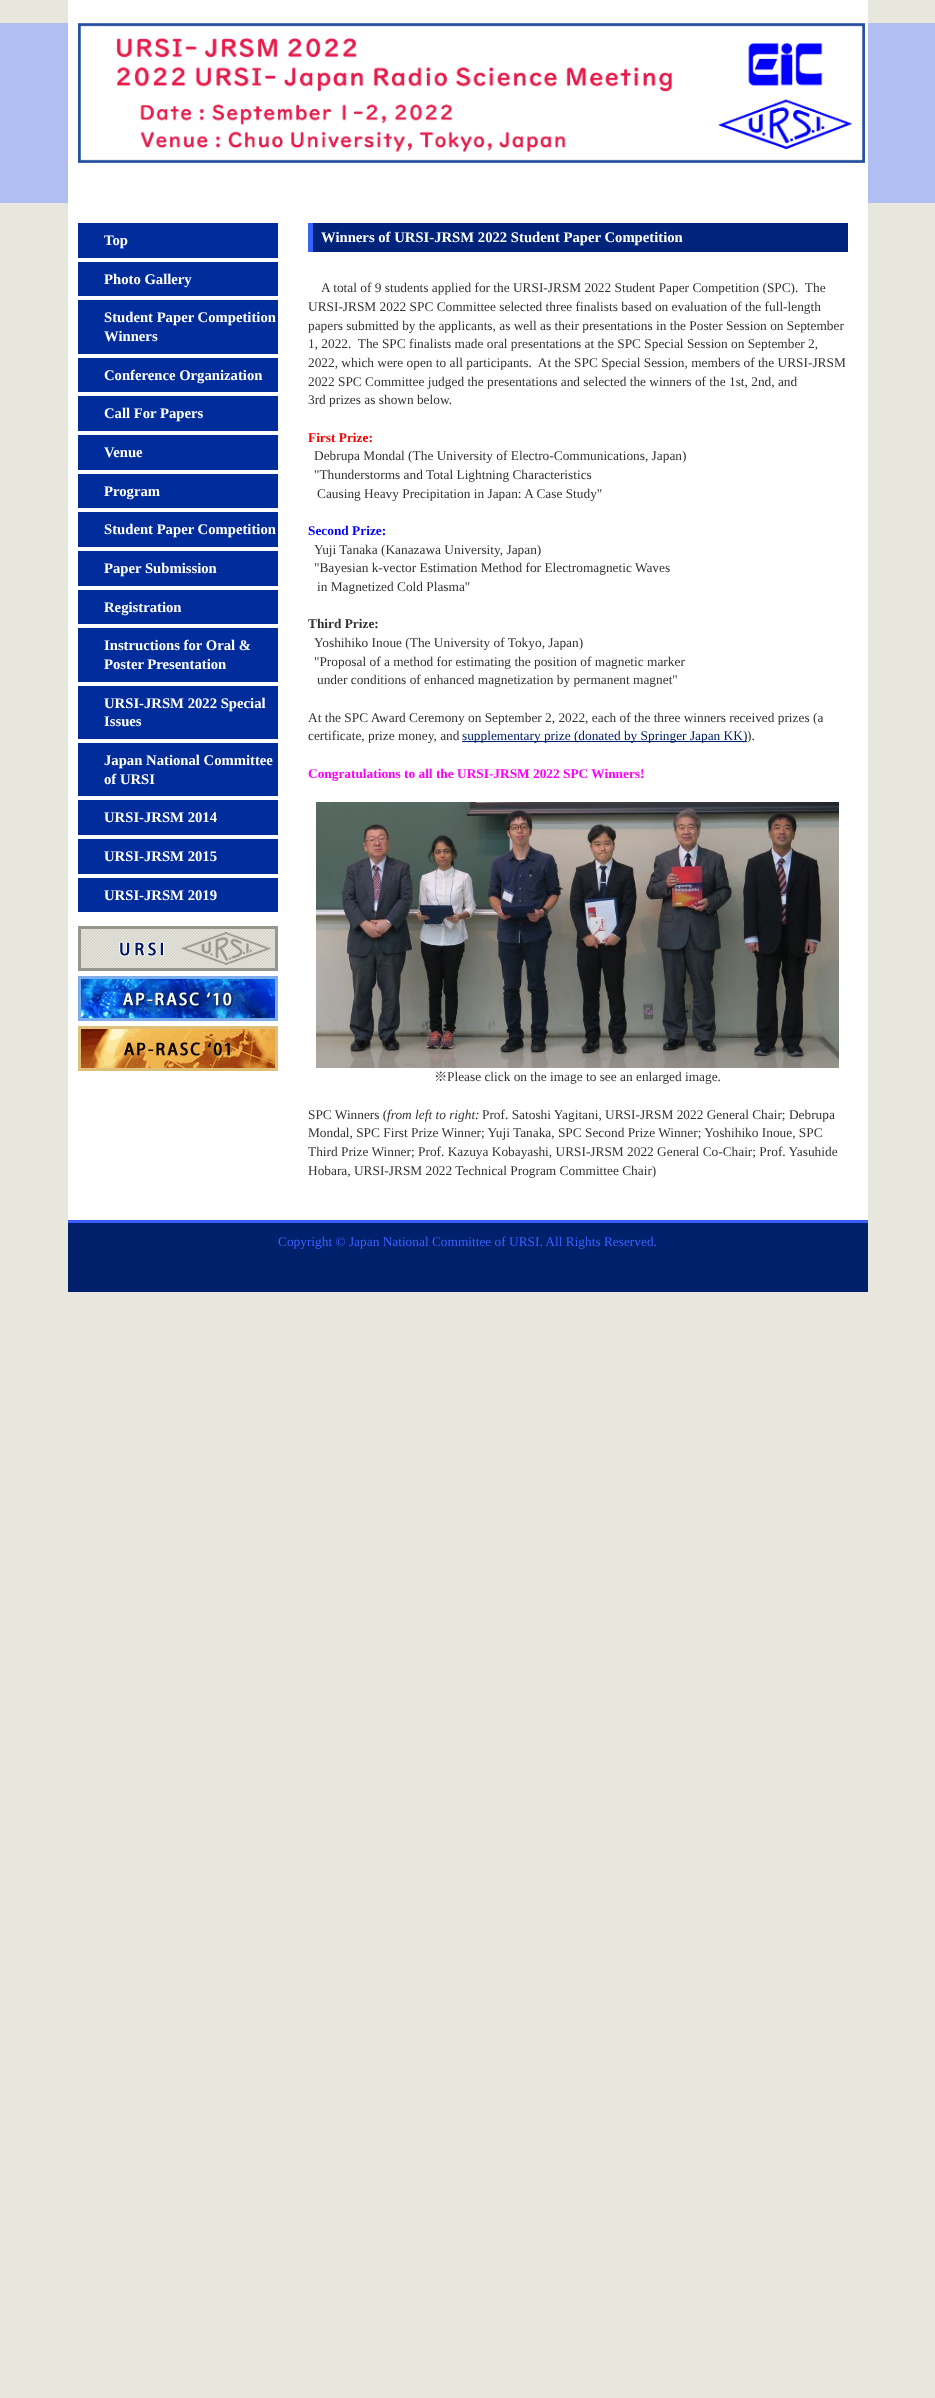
<svg xmlns="http://www.w3.org/2000/svg" width="935" height="2398" viewBox="0 0 935 2398">
  <rect width="100%" height="100%" fill="#e7e7de"/>
  <path d="M0 23h935v180H0z" fill="#b1bef2"/>
  <path d="M68 0h800v1220H68z" fill="#fff"/>
  <image x="78" y="23" width="787" height="140" href="img/1.png"/>
  <path d="M78 223h200v35H78z" fill="#002c9c"/>
  <path d="M78 262h200v34H78z" fill="#002c9c"/>
  <path d="M78 300h200v54H78z" fill="#002c9c"/>
  <path d="M78 358h200v34H78z" fill="#002c9c"/>
  <path d="M78 396h200v35H78z" fill="#002c9c"/>
  <path d="M78 435h200v35H78z" fill="#002c9c"/>
  <path d="M78 474h200v34H78z" fill="#002c9c"/>
  <path d="M78 512h200v35H78z" fill="#002c9c"/>
  <path d="M78 551h200v35H78z" fill="#002c9c"/>
  <path d="M78 590h200v34H78z" fill="#002c9c"/>
  <path d="M78 628h200v54H78z" fill="#002c9c"/>
  <path d="M78 686h200v53H78z" fill="#002c9c"/>
  <path d="M78 743h200v53H78z" fill="#002c9c"/>
  <path d="M78 800h200v35H78z" fill="#002c9c"/>
  <path d="M78 839h200v35H78z" fill="#002c9c"/>
  <path d="M78 878h200v34H78z" fill="#002c9c"/>
  <image x="78" y="926" width="200" height="45" href="img/2.png"/>
  <image x="78" y="976" width="200" height="45" href="img/3.png"/>
  <image x="78" y="1026" width="200" height="45" href="img/4.png"/>
  <path d="M313 223h535v29H313z" fill="#00247b"/>
  <path d="M308 223h5v29H308z" fill="#3961ff"/>
  <path d="M462 741h285v1H462z" fill="#00206b"/>
  <image x="316" y="802" width="523" height="266" href="img/5.png"/>
  <path d="M68 1223h800v69H68z" fill="#00206b"/>
  <path d="M68 1220h800v3H68z" fill="#395dff"/>
  <g font-family="Liberation Serif" font-size="14.7" font-weight="bold" fill="#fff">
    <text x="104" y="245">Top</text>
    <text x="104" y="284">Photo Gallery</text>
    <text x="104" y="322">Student Paper Competition</text>
    <text x="104" y="341">Winners</text>
    <text x="104" y="380">Conference Organization</text>
    <text x="104" y="418">Call For Papers</text>
    <text x="104" y="457">Venue</text>
    <text x="104" y="496">Program</text>
    <text x="104" y="534">Student Paper Competition</text>
    <text x="104" y="573">Paper Submission</text>
    <text x="104" y="612">Registration</text>
    <text x="104" y="650">Instructions for Oral &amp;</text>
    <text x="104" y="669">Poster Presentation</text>
    <text x="104" y="708">URSI-JRSM 2022 Special</text>
    <text x="104" y="726">Issues</text>
    <text x="104" y="765">Japan National Committee</text>
    <text x="104" y="784">of URSI</text>
    <text x="104" y="822">URSI-JRSM 2014</text>
    <text x="104" y="861">URSI-JRSM 2015</text>
    <text x="104" y="900">URSI-JRSM 2019</text>
    <text x="321" y="242">Winners of URSI-JRSM 2022 Student Paper Competition</text>
  </g>
  <g font-family="Liberation Serif" font-size="13.35" fill="#333">
    <text x="321" y="292" xml:space="preserve">A total of 9 students applied for the URSI-JRSM 2022 Student Paper Competition (SPC).  The</text>
    <text x="308" y="311">URSI-JRSM 2022 SPC Committee selected three finalists based on evaluation of the full-length</text>
    <text x="308" y="330">papers submitted by the applicants, as well as their presentations in the Poster Session on September</text>
    <text x="308" y="348" xml:space="preserve">1, 2022.  The SPC finalists made oral presentations at the SPC Special Session on September 2,</text>
    <text x="308" y="367" xml:space="preserve">2022, which were open to all participants.  At the SPC Special Session, members of the URSI-JRSM</text>
    <text x="308" y="386">2022 SPC Committee judged the presentations and selected the winners of the 1st, 2nd, and</text>
    <text x="308" y="404">3rd prizes as shown below.</text>
  </g>
  <text x="308" y="442" font-family="Liberation Serif" font-size="13.35" font-weight="bold" fill="#f00">First Prize:</text>
  <g font-family="Liberation Serif" font-size="13.35" fill="#333">
    <text x="314" y="460">Debrupa Mondal (The University of Electro-Communications, Japan)</text>
    <text x="314" y="479">"Thunderstorms and Total Lightning Characteristics</text>
    <text x="317" y="498">Causing Heavy Precipitation in Japan: A Case Study"</text>
  </g>
  <text x="308" y="535" font-family="Liberation Serif" font-size="13.35" font-weight="bold" fill="#00f">Second Prize:</text>
  <g font-family="Liberation Serif" font-size="13.35" fill="#333">
    <text x="314" y="554">Yuji Tanaka (Kanazawa University, Japan)</text>
    <text x="314" y="572">"Bayesian k-vector Estimation Method for Electromagnetic Waves</text>
    <text x="317" y="591">in Magnetized Cold Plasma"</text>
  </g>
  <text x="308" y="628" font-family="Liberation Serif" font-size="13.35" font-weight="bold" fill="#333">Third Prize:</text>
  <g font-family="Liberation Serif" font-size="13.35" fill="#333">
    <text x="314" y="647">Yoshihiko Inoue (The University of Tokyo, Japan)</text>
    <text x="314" y="666">"Proposal of a method for estimating the position of magnetic marker</text>
    <text x="317" y="684">under conditions of enhanced magnetization by permanent magnet"</text>
    <text x="308" y="722">At the SPC Award Ceremony on September 2, 2022, each of the three winners received prizes (a</text>
    <text x="308" y="740">certificate, prize money, and</text>
  </g>
  <text x="462" y="740" font-family="Liberation Serif" font-size="13.35" fill="#00206b">supplementary prize (donated by Springer Japan KK)</text>
  <text x="747" y="740" font-family="Liberation Serif" font-size="13.35" fill="#333">).</text>
  <text x="308" y="778" font-family="Liberation Serif" font-size="13.35" font-weight="bold" fill="#f0f">Congratulations to all the URSI-JRSM 2022 SPC Winners!</text>
  <text x="434" y="1081" font-family="WenQuanYi Zen Hei" font-size="13.35" font-weight="500" fill="#333">※</text>
  <g font-family="Liberation Serif" font-size="13.35" fill="#333">
    <text x="447" y="1081">Please click on the image to see an enlarged image.</text>
    <text x="308" y="1119">SPC Winners (</text>
  </g>
  <text x="387" y="1119" font-family="Liberation Serif" font-size="13.35" font-style="italic" fill="#333">from left to right:</text>
  <g font-family="Liberation Serif" font-size="13.35" fill="#333">
    <text x="482" y="1119">Prof. Satoshi Yagitani, URSI-JRSM 2022 General Chair; Debrupa</text>
    <text x="308" y="1137">Mondal, SPC First Prize Winner; Yuji Tanaka, SPC Second Prize Winner; Yoshihiko Inoue, SPC</text>
    <text x="308" y="1156">Third Prize Winner; Prof. Kazuya Kobayashi, URSI-JRSM 2022 General Co-Chair; Prof. Yasuhide</text>
    <text x="308" y="1175">Hobara, URSI-JRSM 2022 Technical Program Committee Chair)</text>
  </g>
  <text x="278" y="1246" font-family="Liberation Serif" font-size="13.35" fill="#3961ff">Copyright © Japan National Committee of URSI. All Rights Reserved.</text>
</svg>
